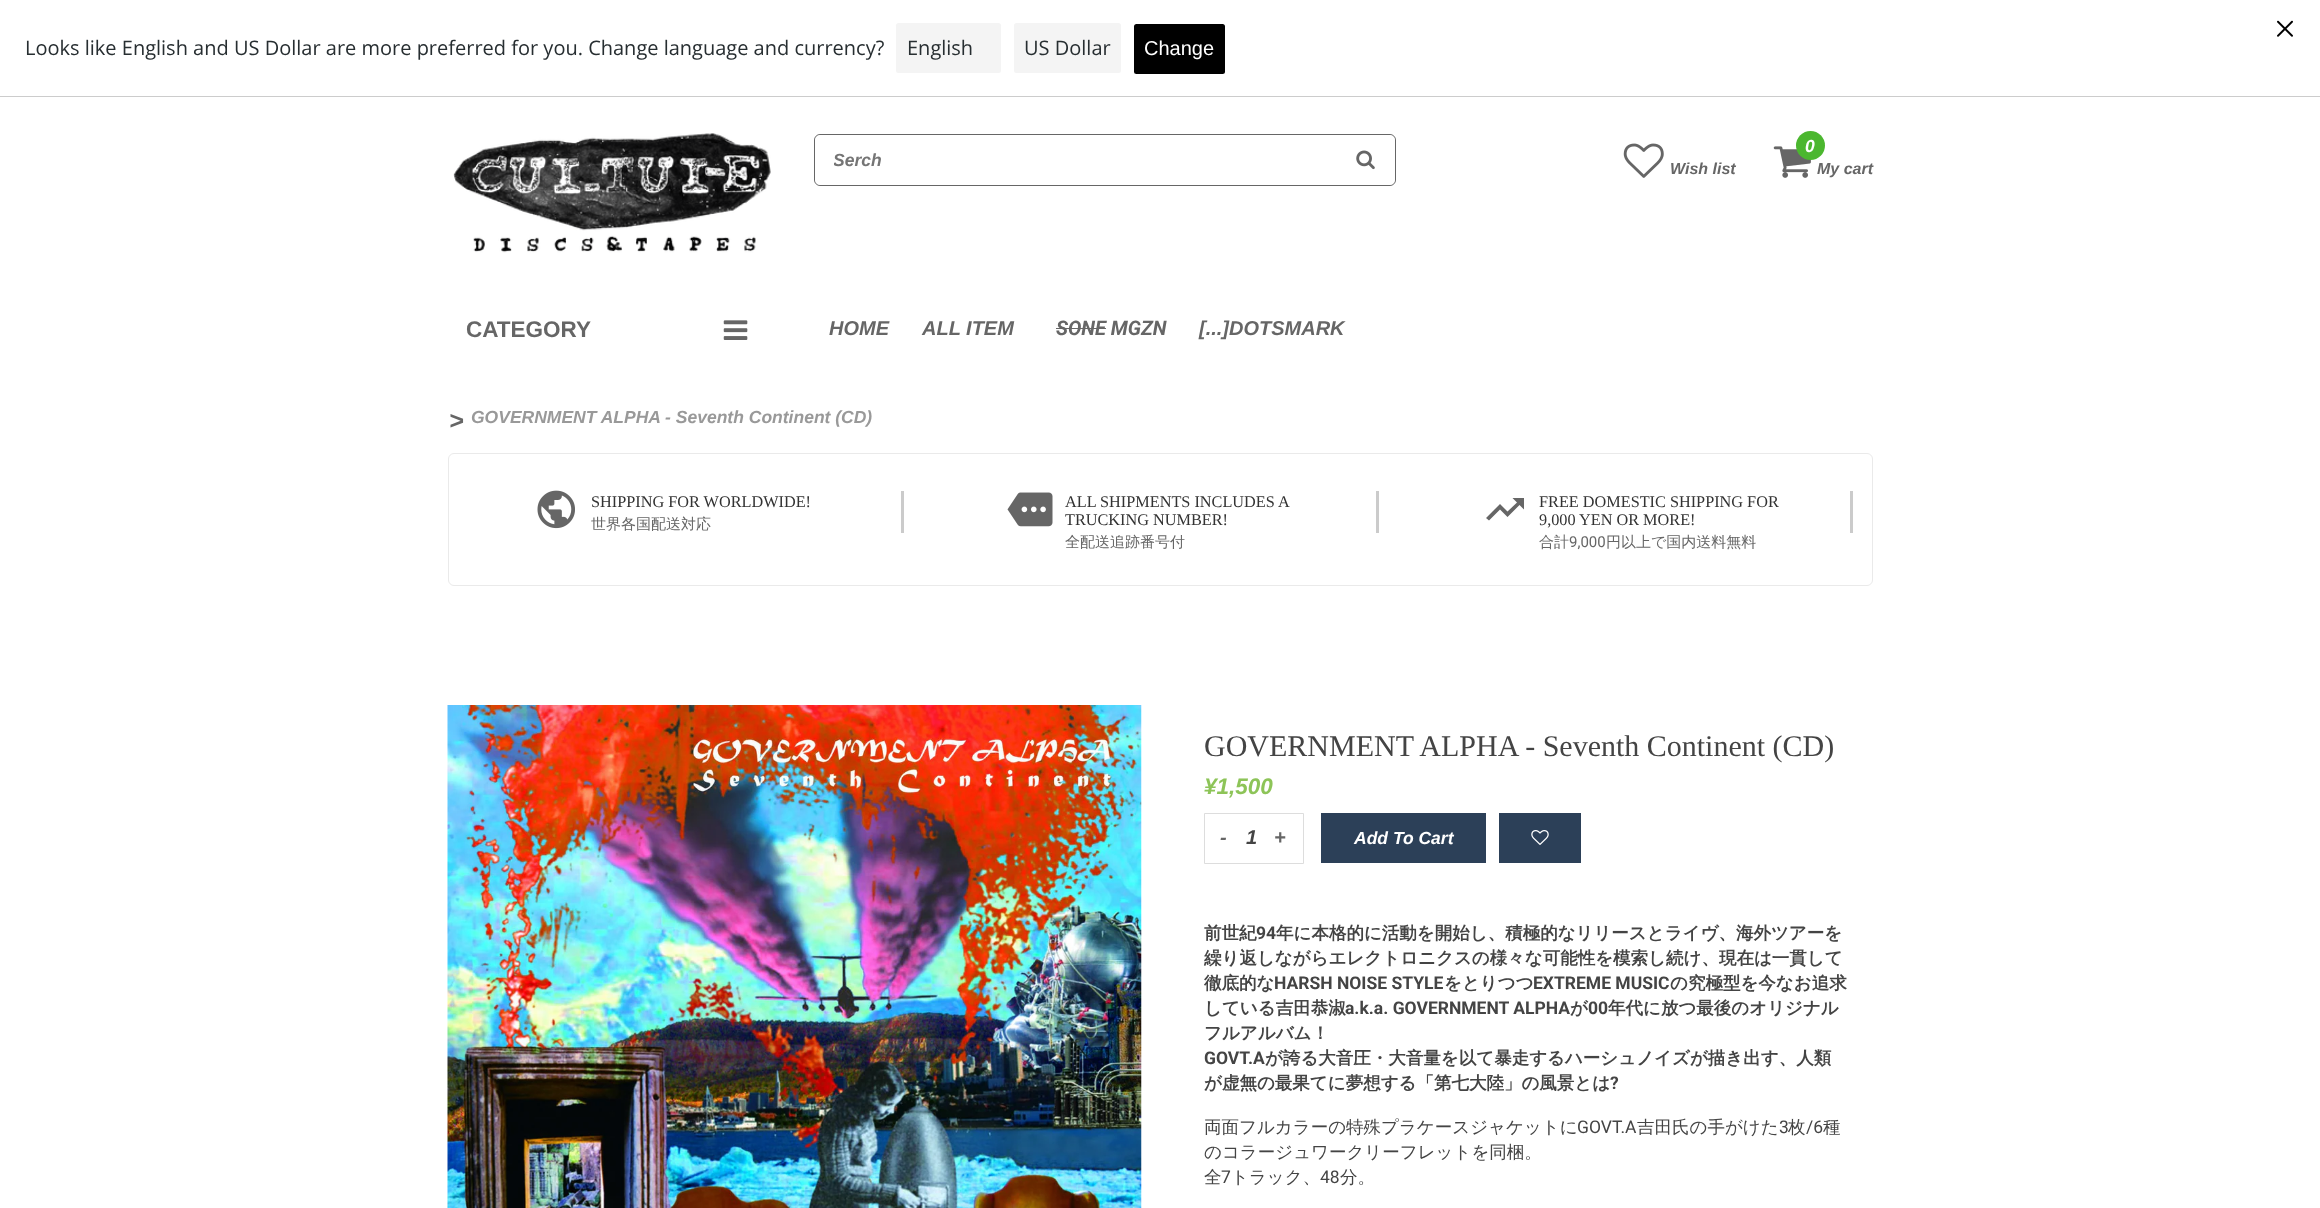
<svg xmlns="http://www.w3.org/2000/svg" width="2320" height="1208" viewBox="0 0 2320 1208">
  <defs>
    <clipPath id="clip1"><path d="M834 150h475v20H834z"/></clipPath>
  </defs>
  <rect width="100%" height="100%" fill="#fff"/>
  <path d="M0 96h2320v1H0z" fill="#ccc"/>
  <image x="2277" y="20" width="16" height="17" href="img/1.png"/>
  <rect x="896" y="23" width="105" height="50" rx="2.5" fill="#f4f4f4"/>
  <rect x="1014" y="23" width="107" height="50" rx="2.5" fill="#f4f4f4"/>
  <rect x="1134" y="24" width="91" height="50" rx="2.5" fill="#000"/>
  <image x="453" y="133" width="318" height="120" href="img/2.png"/>
  <rect x="814.5" y="134.5" width="581" height="51" rx="5.5" fill="none" stroke="#666"/>
  <rect x="815" y="135" width="580" height="50" rx="6" fill="#fff"/>
  <image x="1356" y="150" width="19" height="20" href="img/3.png"/>
  <image x="1623" y="143" width="41" height="35" href="img/4.png"/>
  <image x="1773" y="146" width="38" height="32" href="img/5.png"/>
  <circle cx="1810.5" cy="145.5" r="14.5" fill="#4bb72f"/>
  <image x="723" y="320" width="25" height="20" href="img/6.png"/>
  <path d="M1056 328h50v1H1056z" fill="#666"/>
  <rect x="448.5" y="453.5" width="1424" height="132" rx="5.5" fill="none" stroke="#eaeaea"/>
  <image x="537" y="490" width="38" height="39" href="img/7.png"/>
  <path d="M901 491h3v42H901z" fill="#cbcbcb"/>
  <image x="1007" y="492" width="46" height="35" href="img/8.png"/>
  <path d="M1376 491h3v42H1376z" fill="#cbcbcb"/>
  <path d="M1512.5 498H1524V509.5L1519.5 505L1507.5 517L1500 509.5L1489 520.5L1486 518L1500 504L1507.5 511.5L1517 502.5Z" fill="#666"/>
  <path d="M1850 491h3v42H1850z" fill="#cbcbcb"/>
  <image x="447" y="705" width="695" height="503" href="img/9.png"/>
  <path d="M1204.5 813.5h99v50H1204.5z" fill="none" stroke="#ddd"/>
  <path d="M1321 813h165v50H1321z" fill="#2c4058"/>
  <path d="M1499 813h82v50H1499z" fill="#2c4058"/>
  <image x="1531" y="830" width="18" height="15" href="img/10.png"/>
  <g font-family="Open Sans" font-size="20" fill="#272e31">
    <text x="25" y="55">Looks like English and US Dollar are more preferred for you. Change language and currency?</text>
    <text x="907" y="55">English</text>
    <text x="1024" y="55">US Dollar</text>
  </g>
  <text x="1144" y="55" font-family="Liberation Sans" font-size="20" fill="#fff">Change</text>
  <g clip-path="url(#clip1)">
    <text x="833" y="166" font-family="Liberation Sans" font-size="17.5" font-weight="bold" font-style="italic" fill="#757575">Serch</text>
  </g>
  <text x="1670" y="174" font-family="Liberation Sans" font-size="16" font-weight="bold" font-style="italic" fill="#666">Wish list</text>
  <text x="1805" y="152" font-family="Liberation Sans" font-size="17.5" font-weight="bold" font-style="italic" fill="#fff">0</text>
  <text x="1817" y="174" font-family="Liberation Sans" font-size="16" font-weight="bold" font-style="italic" fill="#666">My cart</text>
  <text x="466" y="337" font-family="Liberation Sans" font-size="22.5" font-weight="bold" fill="#666">CATEGORY</text>
  <g font-family="Liberation Sans" font-size="20" font-weight="bold" font-style="italic" fill="#666">
    <text x="829" y="335">HOME</text>
    <text x="922" y="335">ALL ITEM</text>
  </g>
  <text x="1056" y="335" font-family="Roboto" font-size="20" font-weight="bold" font-style="italic" fill="#666">SONE MGZN</text>
  <text x="1199" y="335" font-family="Liberation Sans" font-size="20" font-weight="bold" font-style="italic" fill="#666">[...]DOTSMARK</text>
  <text x="449" y="429" font-family="Liberation Sans" font-size="25" font-weight="bold" font-style="italic" fill="#666">&gt;</text>
  <text x="471" y="423" font-family="Liberation Sans" font-size="17.5" font-weight="bold" font-style="italic" fill="#999">GOVERNMENT ALPHA - Seventh Continent (CD)</text>
  <text x="591" y="507" font-family="Liberation Serif" font-size="16.25" fill="#333">SHIPPING FOR WORLDWIDE!</text>
  <text x="591" y="529" font-family="WenQuanYi Zen Hei" font-size="15" font-weight="500" fill="#666">世界各国配送対応</text>
  <g font-family="Liberation Serif" font-size="16.25" fill="#333">
    <text x="1065" y="507">ALL SHIPMENTS INCLUDES A</text>
    <text x="1065" y="525">TRUCKING NUMBER!</text>
  </g>
  <text x="1065" y="547" font-family="WenQuanYi Zen Hei" font-size="15" font-weight="500" fill="#666">全配送追跡番号付</text>
  <g font-family="Liberation Serif" font-size="16.25" fill="#333">
    <text x="1539" y="507">FREE DOMESTIC SHIPPING FOR</text>
    <text x="1539" y="525">9,000 YEN OR MORE!</text>
  </g>
  <text x="1539" y="547" font-family="WenQuanYi Zen Hei" font-size="15" font-weight="500" fill="#666">合計</text>
  <text x="1569" y="547" font-family="Roboto" font-size="15" fill="#666">9,000</text>
  <text x="1606" y="547" font-family="WenQuanYi Zen Hei" font-size="15" font-weight="500" fill="#666">円以上で国内送料無料</text>
  <text x="1204" y="756" font-family="Liberation Serif" font-size="30" fill="#444">GOVERNMENT ALPHA - Seventh Continent (CD)</text>
  <text x="1204" y="794" font-family="Liberation Sans" font-size="22.5" font-weight="bold" font-style="italic" fill="#8dc458">¥1,500</text>
  <text x="1220" y="844" font-family="Liberation Sans" font-size="20" font-weight="bold" font-style="italic" fill="#666">-</text>
  <text x="1246" y="844" font-family="Liberation Sans" font-size="20" font-weight="bold" font-style="italic" fill="#444">1</text>
  <text x="1274" y="844" font-family="Liberation Sans" font-size="20" font-weight="bold" font-style="italic" fill="#666">+</text>
  <text x="1354" y="844" font-family="Liberation Sans" font-size="17.5" font-weight="bold" font-style="italic" fill="#fff">Add To Cart</text>
  <text x="1204" y="939" font-family="WenQuanYi Zen Hei" font-size="17.5" font-weight="bold" fill="#444">前世紀</text>
  <text x="1256" y="939" font-family="Roboto" font-size="17.5" font-weight="bold" fill="#444">94</text>
  <g font-family="WenQuanYi Zen Hei" font-size="17.5" font-weight="bold" fill="#444">
    <text x="1276" y="939">年に本格的に活動を開始し、積極的なリリースとライヴ、海外ツアーを</text>
    <text x="1204" y="964">繰り返しながらエレクトロニクスの様々な可能性を模索し続け、現在は一貫して</text>
    <text x="1204" y="989">徹底的な</text>
  </g>
  <text x="1274" y="989" font-family="Roboto" font-size="17.5" font-weight="bold" fill="#444">HARSH NOISE STYLE</text>
  <text x="1444" y="989" font-family="WenQuanYi Zen Hei" font-size="17.5" font-weight="bold" fill="#444">をとりつつ</text>
  <text x="1533" y="989" font-family="Roboto" font-size="17.5" font-weight="bold" fill="#444">EXTREME MUSIC</text>
  <g font-family="WenQuanYi Zen Hei" font-size="17.5" font-weight="bold" fill="#444">
    <text x="1670" y="989">の究極型を今なお追求</text>
    <text x="1204" y="1014">している吉田恭淑</text>
  </g>
  <text x="1345" y="1014" font-family="Roboto" font-size="17.5" font-weight="bold" fill="#444">a.k.a. GOVERNMENT ALPHA</text>
  <text x="1570" y="1014" font-family="WenQuanYi Zen Hei" font-size="17.5" font-weight="bold" fill="#444">が</text>
  <text x="1588" y="1014" font-family="Roboto" font-size="17.5" font-weight="bold" fill="#444">00</text>
  <g font-family="WenQuanYi Zen Hei" font-size="17.5" font-weight="bold" fill="#444">
    <text x="1608" y="1014">年代に放つ最後のオリジナル</text>
    <text x="1204" y="1039">フルアルバム！</text>
  </g>
  <text x="1204" y="1064" font-family="Roboto" font-size="17.5" font-weight="bold" fill="#444">GOVT.A</text>
  <g font-family="WenQuanYi Zen Hei" font-size="17.5" font-weight="bold" fill="#444">
    <text x="1265" y="1064">が誇る大音圧・大音量を以て暴走するハーシュノイズが描き出す、人類</text>
    <text x="1204" y="1089">が虚無の最果てに夢想する「第七大陸」の風景とは</text>
  </g>
  <text x="1610" y="1089" font-family="Roboto" font-size="17.5" font-weight="bold" fill="#444">?</text>
  <text x="1204" y="1133" font-family="WenQuanYi Zen Hei" font-size="17.5" font-weight="500" fill="#444">両面フルカラーの特殊プラケースジャケットに</text>
  <text x="1577" y="1133" font-family="Roboto" font-size="17.5" fill="#444">GOVT.A</text>
  <text x="1637" y="1133" font-family="WenQuanYi Zen Hei" font-size="17.5" font-weight="500" fill="#444">吉田氏の手がけた</text>
  <text x="1779" y="1133" font-family="Roboto" font-size="17.5" fill="#444">3</text>
  <text x="1788" y="1133" font-family="WenQuanYi Zen Hei" font-size="17.5" font-weight="500" fill="#444">枚</text>
  <text x="1806" y="1133" font-family="Roboto" font-size="17.5" fill="#444">/6</text>
  <g font-family="WenQuanYi Zen Hei" font-size="17.5" font-weight="500" fill="#444">
    <text x="1823" y="1133">種</text>
    <text x="1204" y="1158">のコラージュワークリーフレットを同梱。</text>
    <text x="1204" y="1183">全</text>
  </g>
  <text x="1221" y="1183" font-family="Roboto" font-size="17.5" fill="#444">7</text>
  <text x="1231" y="1183" font-family="WenQuanYi Zen Hei" font-size="17.5" font-weight="500" fill="#444">トラック、</text>
  <text x="1320" y="1183" font-family="Roboto" font-size="17.5" fill="#444">48</text>
  <text x="1340" y="1183" font-family="WenQuanYi Zen Hei" font-size="17.5" font-weight="500" fill="#444">分。</text>
</svg>
